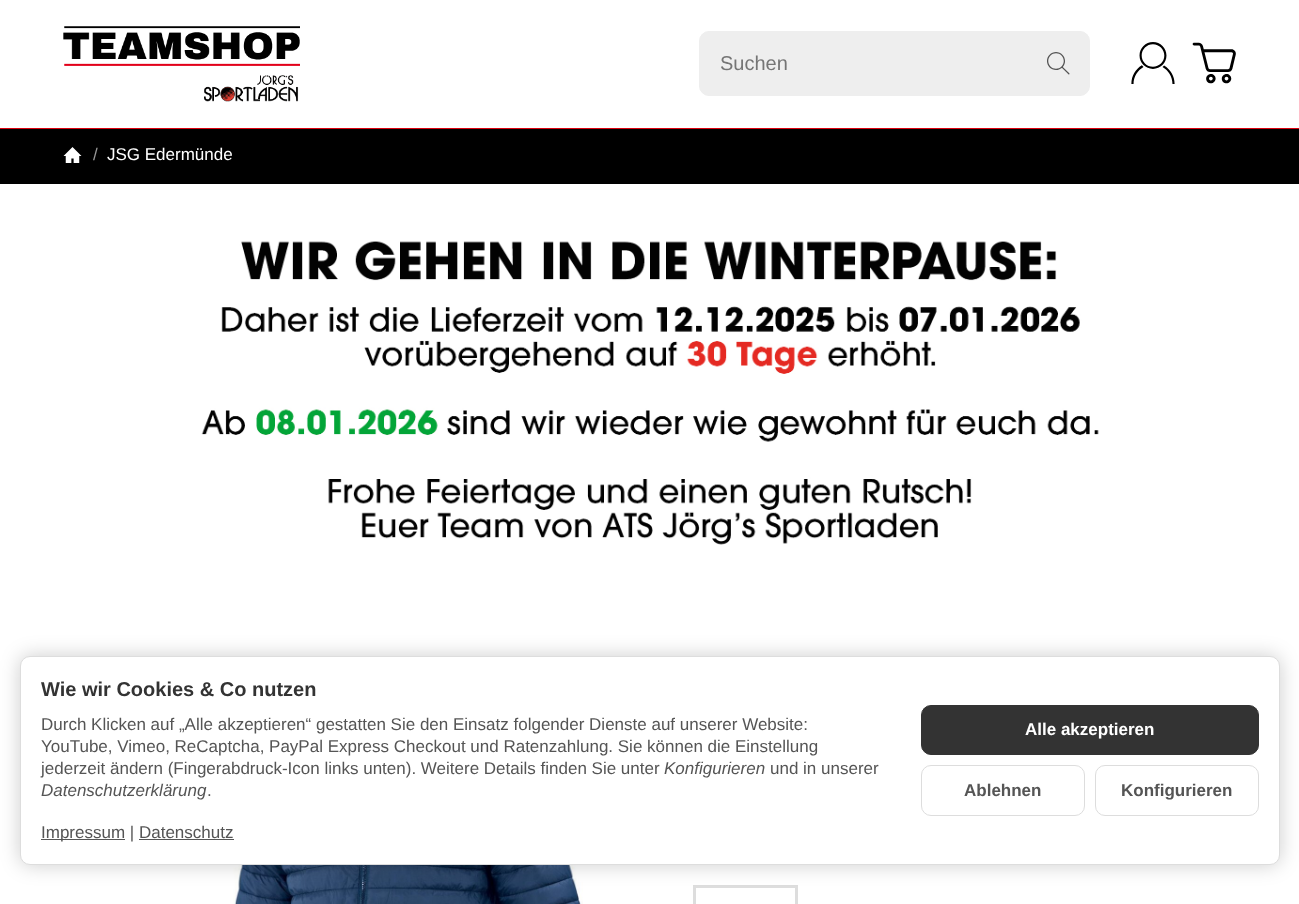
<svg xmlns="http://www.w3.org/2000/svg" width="1299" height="904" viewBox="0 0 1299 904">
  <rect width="100%" height="100%" fill="#fff"/>
  <image x="63" y="26" width="237" height="76" href="img/1.png"/>
  <rect x="699.5" y="31.5" width="390" height="64" rx="9.5" fill="#eee" stroke="#eee"/>
  <image x="1047" y="52" width="23" height="23" href="img/2.png"/>
  <image x="1131" y="42" width="44" height="42" href="img/3.png"/>
  <image x="1192" y="42" width="44" height="42" href="img/4.png"/>
  <path d="M0 128h1299v1H0z" fill="#db000e"/>
  <path d="M0 129h1299v55H0z" fill="#000"/>
  <image x="63" y="147" width="19" height="16" href="img/5.png"/>
  <image x="201" y="241" width="898" height="304" href="img/6.png"/>
  <image x="233" y="865" width="350" height="39" href="img/7.png"/>
  <path d="M694.5 886.5h102v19H694.5z" fill="none" stroke="#ddd" stroke-width="3"/>
  <rect x="20" y="656" width="1260" height="209" rx="10" fill="#00000033" filter="blur(10px)"/>
  <rect x="20.5" y="656.5" width="1259" height="208" rx="9.5" fill="#fff" stroke="#ddd"/>
  <path d="M41 839h84v1H41z" fill="#555"/>
  <path d="M139 839h95v1H139z" fill="#555"/>
  <rect x="921.5" y="705.5" width="337" height="49" rx="9.5" fill="#333" stroke="#333"/>
  <rect x="921.5" y="765.5" width="163" height="50" rx="9.5" fill="none" stroke="#ddd"/>
  <rect x="1095.5" y="765.5" width="163" height="50" rx="9.5" fill="none" stroke="#ddd"/>
  <text x="720" y="70" font-family="Liberation Sans" font-size="20" fill="#757575">Suchen</text>
  <text x="93" y="160" font-family="Liberation Sans" font-size="17" fill="#999">/</text>
  <text x="107" y="160" font-family="Liberation Sans" font-size="17" fill="#fff">JSG Edermünde</text>
  <text x="41" y="696" font-family="Liberation Sans" font-size="20" font-weight="bold" fill="#333">Wie wir Cookies &amp; Co nutzen</text>
  <g font-family="Liberation Sans" font-size="17" fill="#555">
    <text x="41" y="730">Durch Klicken auf „Alle akzeptieren“ gestatten Sie den Einsatz folgender Dienste auf unserer Website:</text>
    <text x="41" y="752">YouTube, Vimeo, ReCaptcha, PayPal Express Checkout und Ratenzahlung. Sie können die Einstellung</text>
    <text x="41" y="774">jederzeit ändern (Fingerabdruck-Icon links unten). Weitere Details finden Sie unter</text>
  </g>
  <text x="664" y="774" font-family="Liberation Sans" font-size="17" font-style="italic" fill="#555">Konfigurieren</text>
  <text x="770" y="774" font-family="Liberation Sans" font-size="17" fill="#555">und in unserer</text>
  <text x="41" y="796" font-family="Liberation Sans" font-size="17" font-style="italic" fill="#555">Datenschutzerklärung</text>
  <g font-family="Liberation Sans" font-size="17" fill="#555">
    <text x="207" y="796">.</text>
    <text x="41" y="838">Impressum | Datenschutz</text>
  </g>
  <text x="1025" y="735" font-family="Liberation Sans" font-size="17" font-weight="bold" fill="#fff">Alle akzeptieren</text>
  <g font-family="Liberation Sans" font-size="17" font-weight="bold" fill="#555">
    <text x="964" y="796">Ablehnen</text>
    <text x="1121" y="796">Konfigurieren</text>
  </g>
</svg>
